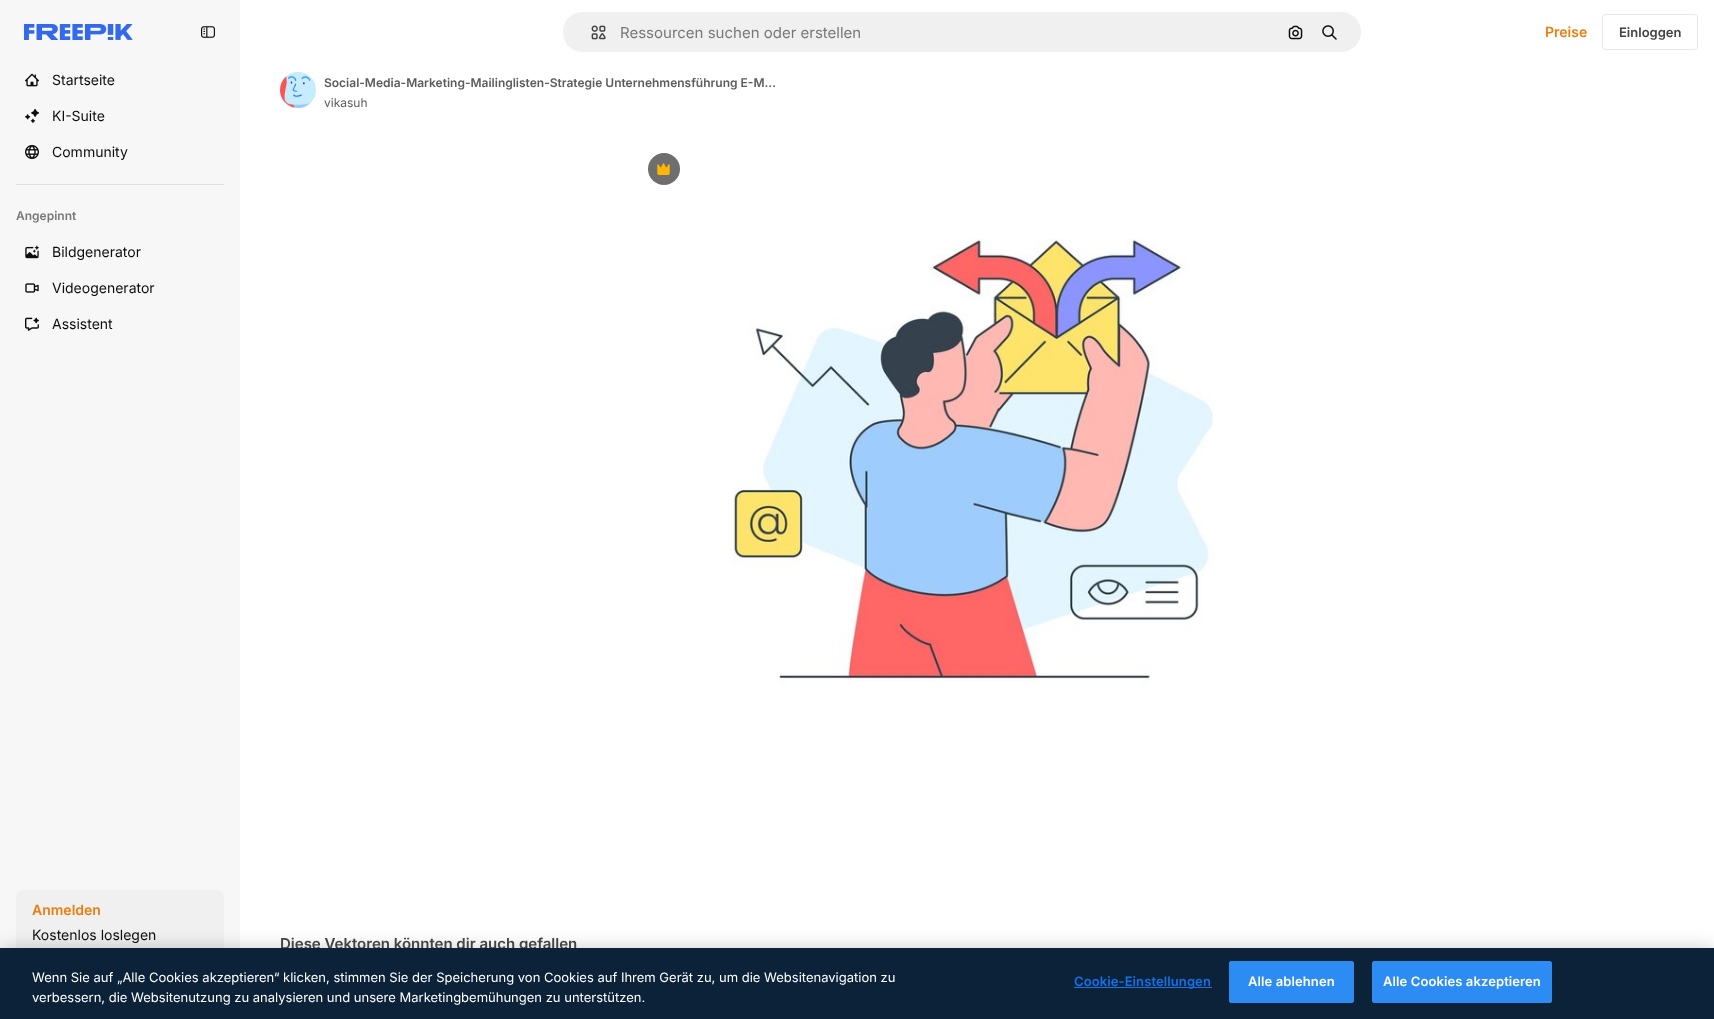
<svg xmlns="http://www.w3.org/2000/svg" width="1714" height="1019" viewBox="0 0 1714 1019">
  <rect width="100%" height="100%" fill="#fff"/>
  <path d="M0 0h240v948H0z" fill="#f7f7f7"/>
  <image x="24" y="24" width="109" height="16" href="img/1.png"/>
  <image x="201" y="26" width="14" height="12" href="img/2.png"/>
  <image x="25" y="73" width="14" height="14" href="img/3.png"/>
  <image x="25" y="109" width="14" height="14" href="img/4.png"/>
  <image x="25" y="145" width="14" height="14" href="img/5.png"/>
  <path d="M16 184h208v1H16z" fill="#e0e0e0"/>
  <image x="25" y="245" width="14" height="14" href="img/6.png"/>
  <image x="25" y="283" width="14" height="10" href="img/7.png"/>
  <image x="25" y="317" width="14" height="14" href="img/8.png"/>
  <rect x="16" y="890" width="208" height="65" rx="8" fill="#f0f0f0"/>
  <rect x="562.5" y="11.5" width="799" height="41" rx="20.5" fill="#f0f0f0" stroke="#fff"/>
  <image x="591" y="25" width="15" height="15" href="img/9.png"/>
  <image x="1288" y="25" width="15" height="15" href="img/10.png"/>
  <image x="1322" y="25" width="15" height="15" href="img/11.png"/>
  <rect x="1602.5" y="14.5" width="95" height="35" rx="3.5" fill="none" stroke="#e7e7e7"/>
  <image x="280" y="72" width="36" height="36" href="img/12.png"/>
  <circle cx="664" cy="169" r="16" fill="#6e6e6e"/>
  <image x="657" y="163" width="13" height="12" href="img/13.png"/>
  <image x="733" y="238" width="481" height="447" href="img/14.png"/>
  <path d="M0 948h1714v71H0z" fill="#00000033" filter="blur(9px)"/>
  <g font-family="Inter" font-size="14" fill="#0d0d0d">
    <text x="52" y="85">Startseite</text>
    <text x="52" y="121">KI-Suite</text>
    <text x="52" y="157">Community</text>
  </g>
  <text x="16" y="220" font-family="Inter" font-size="12" font-weight="600" fill="#787878">Angepinnt</text>
  <g font-family="Inter" font-size="14" fill="#0d0d0d">
    <text x="52" y="257">Bildgenerator</text>
    <text x="52" y="293">Videogenerator</text>
    <text x="52" y="329">Assistent</text>
  </g>
  <text x="32" y="915" font-family="Inter" font-size="14" font-weight="600" fill="#ea7e11">Anmelden</text>
  <text x="32" y="940" font-family="Inter" font-size="14" fill="#0d0d0d">Kostenlos loslegen</text>
  <text x="620" y="38" font-family="Inter" font-size="15" fill="#787878">Ressourcen suchen oder erstellen</text>
  <text x="1545" y="37" font-family="Inter" font-size="14" font-weight="600" fill="#ea7e11">Preise</text>
  <text x="1619" y="37" font-family="Inter" font-size="13" font-weight="600" fill="#424242">Einloggen</text>
  <text x="324" y="87" font-family="Inter" font-size="12" font-weight="600" fill="#5c5c5c">Social-Media-Marketing-Mailinglisten-Strategie Unternehmensführung E-M…</text>
  <text x="324" y="107" font-family="Inter" font-size="12" fill="#5c5c5c">vikasuh</text>
  <text x="280" y="949" font-family="Inter" font-size="15" font-weight="600" fill="#424242">Diese Vektoren könnten dir auch gefallen</text>
  <path d="M0 948h1714v71H0z" fill="#0b2239"/>
  <g font-family="Inter" font-size="13" fill="#fff">
    <text x="32" y="982">Wenn Sie auf „Alle Cookies akzeptieren“ klicken, stimmen Sie der Speicherung von Cookies auf Ihrem Gerät zu, um die Websitenavigation zu</text>
    <text x="32" y="1002">verbessern, die Websitenutzung zu analysieren und unsere Marketingbemühungen zu unterstützen.</text>
  </g>
  <path d="M1074 987h138v1H1074z" fill="#1273eb"/>
  <text x="1074" y="986" font-family="Inter" font-size="13" font-weight="600" letter-spacing="0.1" fill="#1273eb">Cookie-Einstellungen</text>
  <rect x="1229.5" y="961.5" width="124" height="41" rx="1.5" fill="#2c8cf4" stroke="#2c8cf4"/>
  <text x="1248" y="986" font-family="Inter" font-size="13" font-weight="600" letter-spacing="0.1" fill="#fff">Alle ablehnen</text>
  <rect x="1372.5" y="961.5" width="179" height="41" rx="1.5" fill="#2c8cf4" stroke="#2c8cf4"/>
  <text x="1383" y="986" font-family="Inter" font-size="13" font-weight="600" letter-spacing="0.1" fill="#fff">Alle Cookies akzeptieren</text>
</svg>
